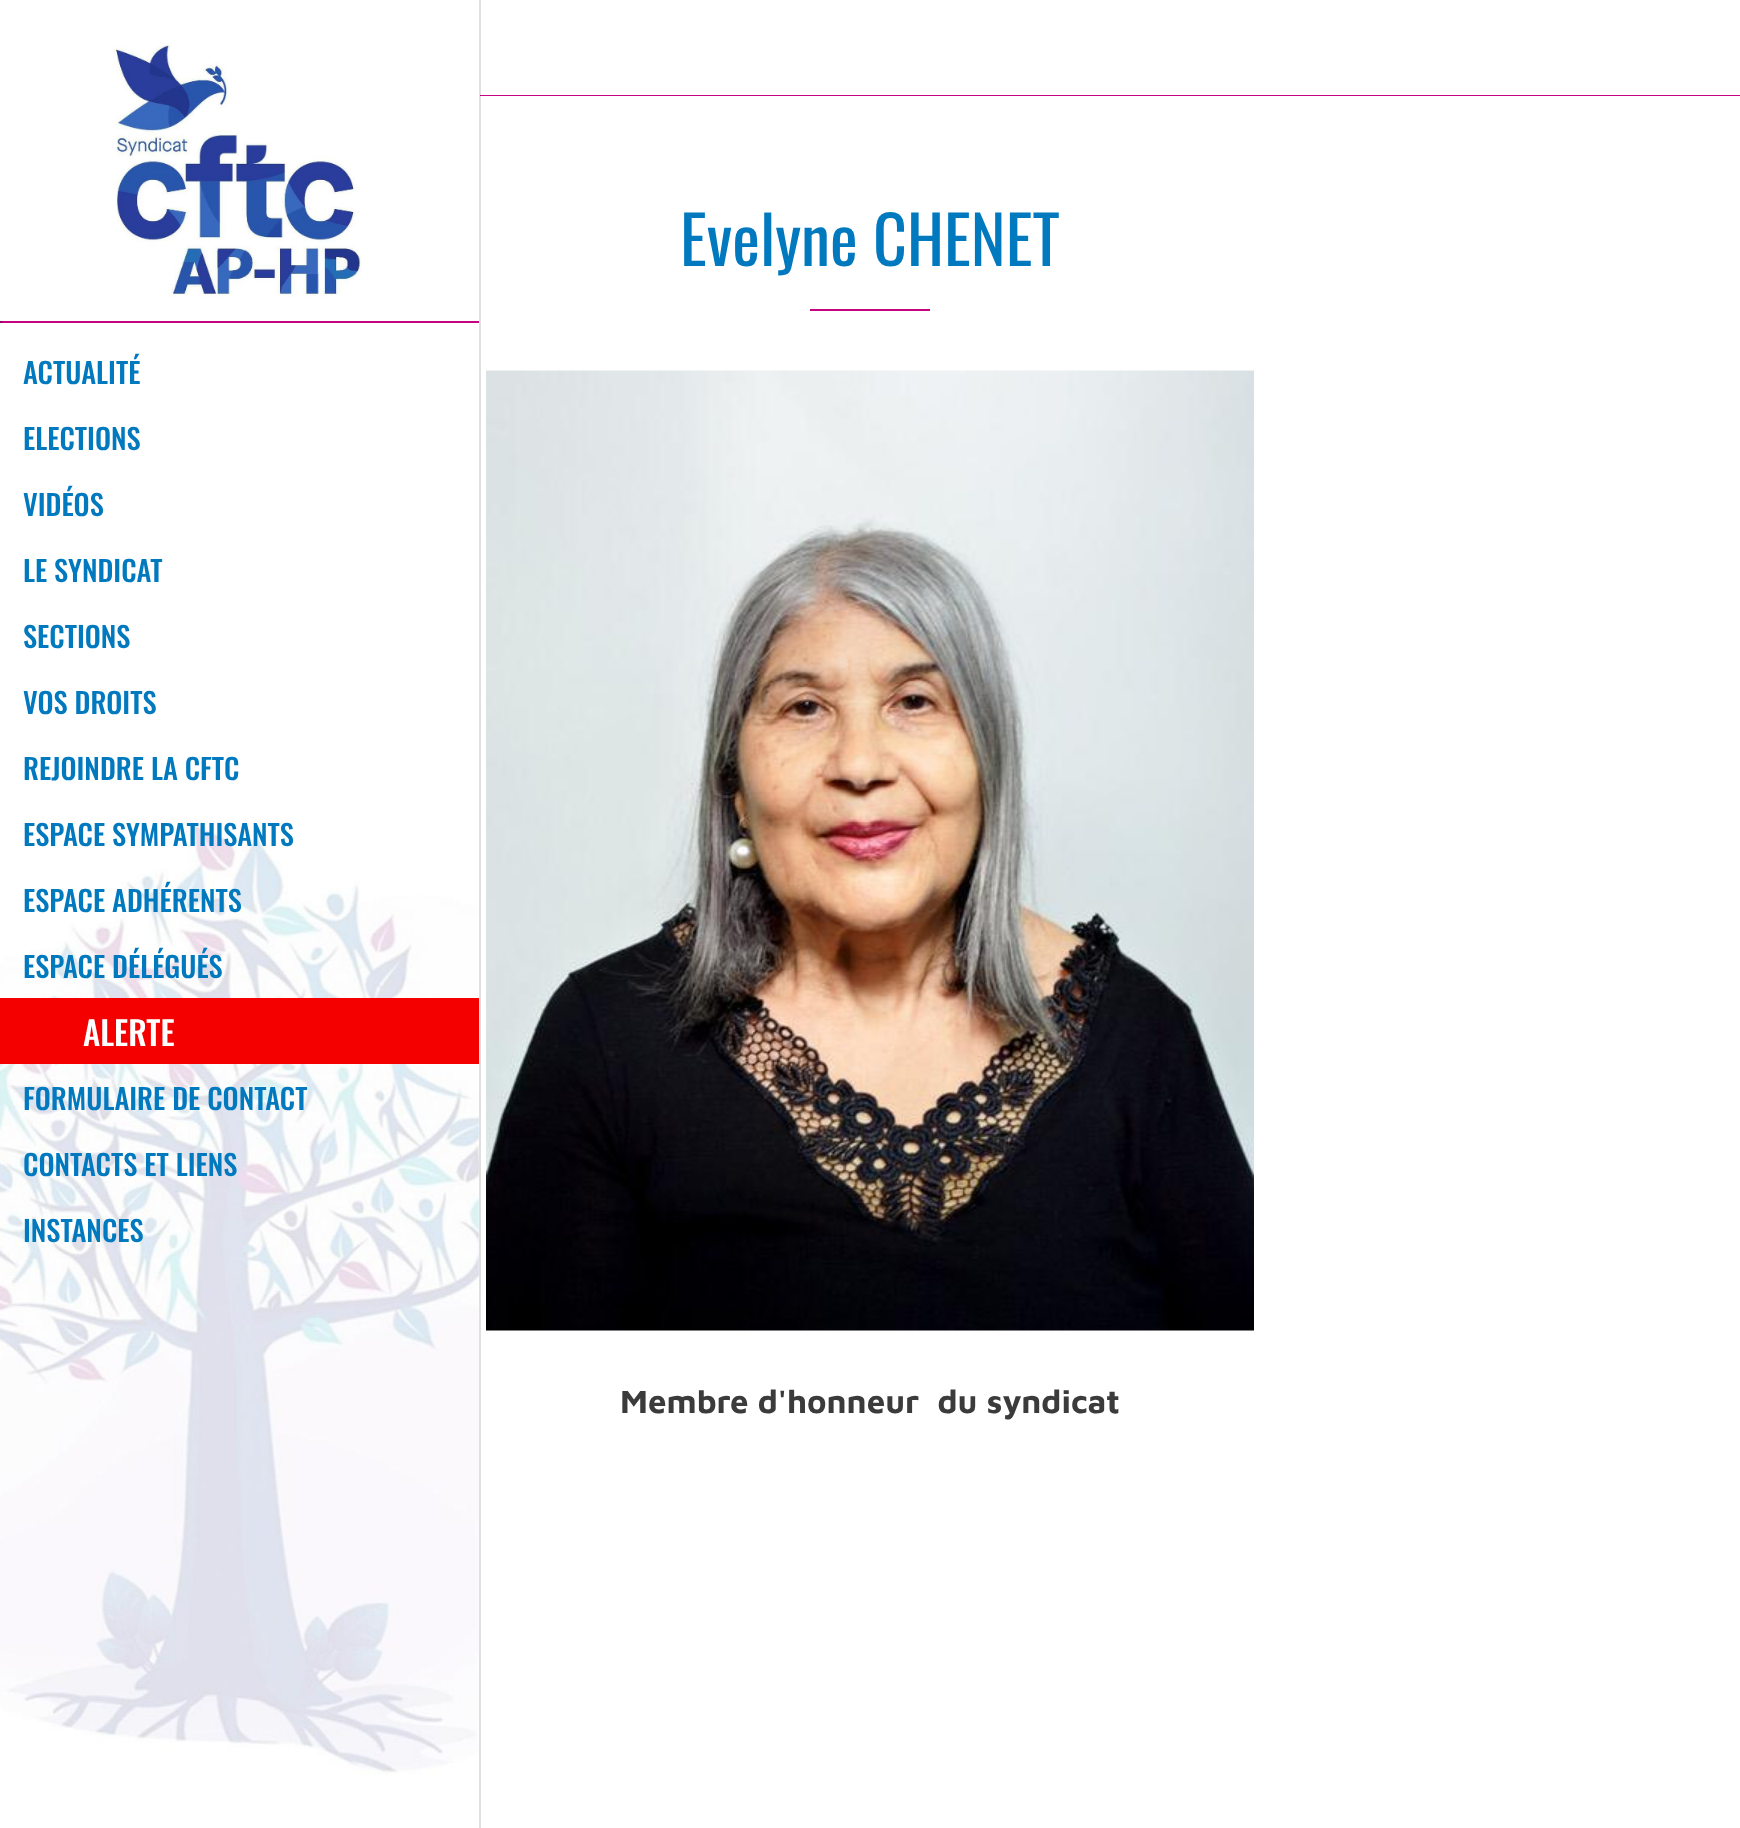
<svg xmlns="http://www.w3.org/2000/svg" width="1740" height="1828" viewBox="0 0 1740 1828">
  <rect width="100%" height="100%" fill="#fff"/>
  <path d="M480 0h1v1828H480z" fill="#e0e0e0"/>
  <path d="M479 95h2v1H479z" fill="#af0470"/>
  <path d="M479 0h1v1828H479z" fill="#e0e0e0"/>
  <image x="0" y="821" width="479" height="954" href="img/1.png"/>
  <image x="111" y="43" width="252" height="254" href="img/2.png"/>
  <path d="M0 321h479v2H0z" fill="#c7047f"/>
  <path d="M0 321h2v2H0z" fill="#850355"/>
  <path d="M0 998h479v66H0z" fill="#f50000"/>
  <path d="M481 95h1259v1H481z" fill="#c7047f"/>
  <path d="M810 309h120v2H810z" fill="#c7047f"/>
  <image x="486" y="370" width="768" height="961" href="img/3.png"/>
  <g font-family="Oswald" font-size="28.5" font-weight="500" fill="#0079bf">
    <text x="23" y="384">ACTUALITÉ</text>
    <text x="23" y="450">ELECTIONS</text>
    <text x="23" y="516">VIDÉOS</text>
    <text x="23" y="582">LE SYNDICAT</text>
    <text x="23" y="648">SECTIONS</text>
    <text x="23" y="714">VOS DROITS</text>
    <text x="23" y="780">REJOINDRE LA CFTC</text>
    <text x="23" y="846">ESPACE SYMPATHISANTS</text>
    <text x="23" y="912">ESPACE ADHÉRENTS</text>
    <text x="23" y="978">ESPACE DÉLÉGUÉS</text>
  </g>
  <text x="83" y="1046" font-family="Oswald" font-size="33" font-weight="500" fill="#fff">ALERTE</text>
  <g font-family="Oswald" font-size="28.5" font-weight="500" fill="#0079bf">
    <text x="23" y="1110">FORMULAIRE DE CONTACT</text>
    <text x="23" y="1176">CONTACTS ET LIENS</text>
    <text x="23" y="1242">INSTANCES</text>
  </g>
  <text x="680" y="266" font-family="Oswald" font-size="66" fill="#0079bf">Evelyne CHENET</text>
  <text x="620" y="1413" font-family="Maven Pro" font-size="33" font-weight="bold" fill="#3b3b3b" xml:space="preserve">Membre d'honneur  du syndicat</text>
</svg>
